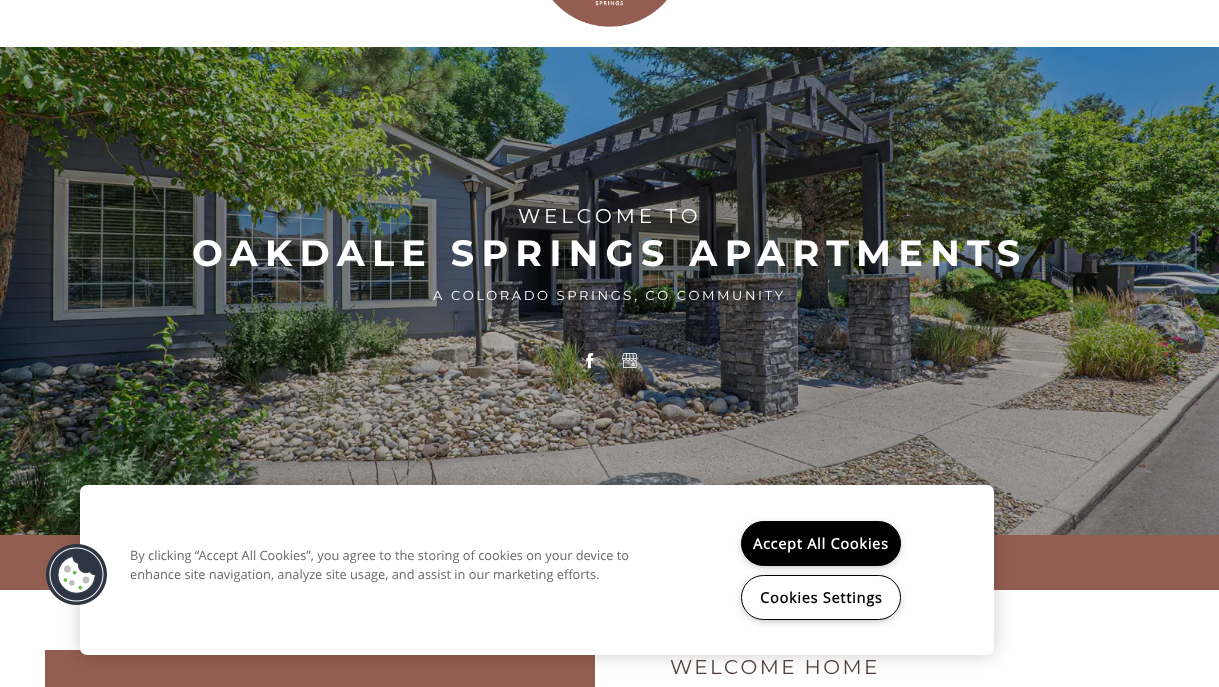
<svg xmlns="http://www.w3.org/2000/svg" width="1219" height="687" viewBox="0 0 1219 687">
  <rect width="100%" height="100%" fill="#fff"/>
  <image x="552" y="0" width="115" height="27" href="img/1.png"/>
  <image x="0" y="47" width="1219" height="488" href="img/2.png"/>
  <image x="586" y="353" width="8" height="16" href="img/3.png"/>
  <image x="622" y="353" width="16" height="15" href="img/4.png"/>
  <path d="M0 535h1219v55H0z" fill="#935e52"/>
  <path d="M45 650h550v37H45z" fill="#935e52"/>
  <rect x="80" y="485" width="914" height="170" rx="7" fill="#00000033" filter="blur(9px)"/>
  <rect x="80" y="485" width="914" height="170" rx="7" fill="#fff"/>
  <image x="46" y="544" width="61" height="61" href="img/5.png"/>
  <rect x="744" y="526" width="154" height="39" rx="19.5" fill="#999" filter="blur(5px)"/>
  <rect x="741.5" y="521.5" width="159" height="44" rx="22" fill="#000" stroke="#000"/>
  <rect x="744" y="580" width="154" height="39" rx="19.5" fill="#999" filter="blur(5px)"/>
  <rect x="741.5" y="575.5" width="159" height="44" rx="22" fill="#fff" stroke="#000"/>
  <text x="518" y="223" font-family="Montserrat" font-size="20" letter-spacing="4" fill="#fff">WELCOME TO</text>
  <text x="192" y="266" font-family="Montserrat" font-size="36.6" font-weight="bold" letter-spacing="7.3" fill="#fff">OAKDALE SPRINGS APARTMENTS</text>
  <text x="433" y="300" font-family="Montserrat" font-size="13" letter-spacing="2.6" fill="#fff">A COLORADO SPRINGS, CO COMMUNITY</text>
  <text x="670" y="674" font-family="Montserrat" font-size="20" letter-spacing="2.4" fill="#50423b">WELCOME HOME</text>
  <g font-family="Open Sans" font-size="12.8" fill="#696969">
    <text x="130" y="560">By clicking “Accept All Cookies”, you agree to the storing of cookies on your device to</text>
    <text x="130" y="579">enhance site navigation, analyze site usage, and assist in our marketing efforts.</text>
  </g>
  <text x="753" y="549" font-family="Open Sans" font-size="14.5" font-weight="bold" letter-spacing="0.75" fill="#fff">Accept All Cookies</text>
  <text x="760" y="603" font-family="Open Sans" font-size="14.5" font-weight="bold" letter-spacing="0.75" fill="#000">Cookies Settings</text>
</svg>
